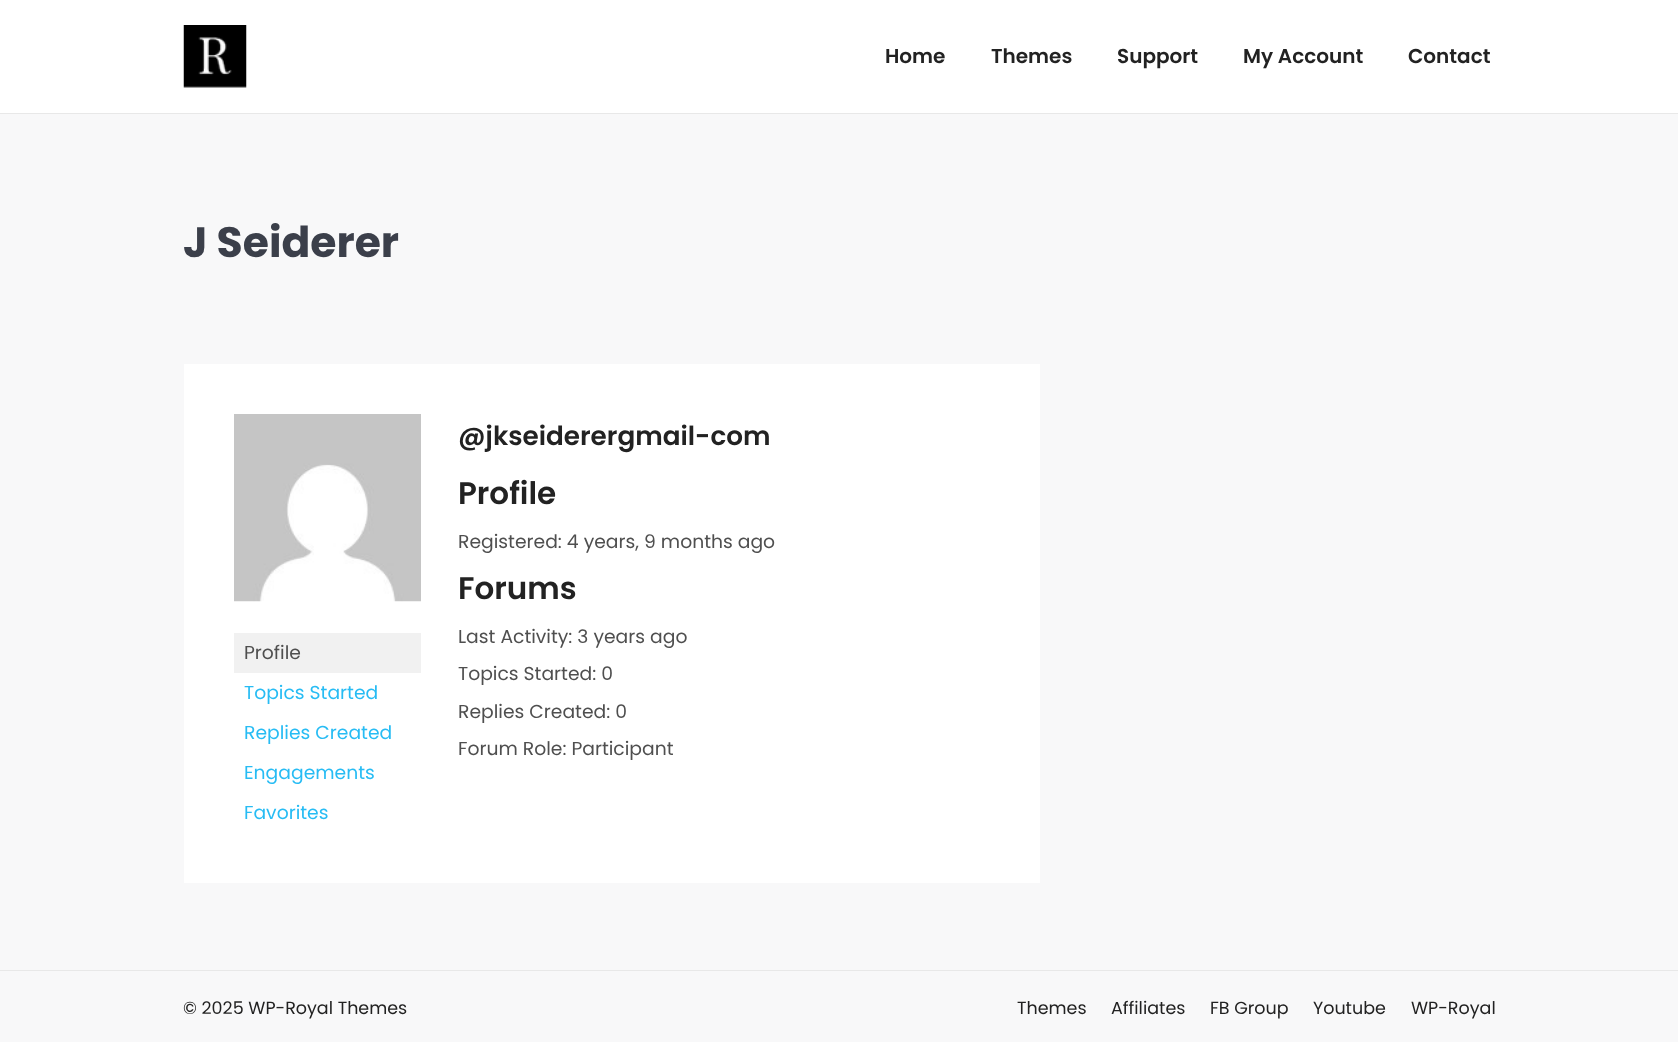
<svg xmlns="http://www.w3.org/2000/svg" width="1678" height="1042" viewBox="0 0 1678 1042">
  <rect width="100%" height="100%" fill="#f8f8f9"/>
  <path d="M0 0h1678v113H0z" fill="#fff"/>
  <path d="M0 113h1678v1H0z" fill="#e8e8e8"/>
  <image x="183" y="25" width="64" height="63" href="img/1.png"/>
  <path d="M184 364h856v519H184z" fill="#fff"/>
  <image x="234" y="414" width="187" height="188" href="img/2.png"/>
  <path d="M234 633h187v40H234z" fill="#f1f1f1"/>
  <path d="M0 970h1678v1H0z" fill="#e8e8e8"/>
  <g font-family="Poppins" font-size="20" font-weight="600" fill="#222">
    <text x="885" y="63">Home</text>
    <text x="991" y="63">Themes</text>
    <text x="1117" y="63">Support</text>
    <text x="1243" y="63">My Account</text>
    <text x="1408" y="63">Contact</text>
  </g>
  <text x="183" y="257" font-family="Poppins" font-size="42.5" font-weight="bold" fill="#3b3f4a">J Seiderer</text>
  <text x="244" y="659" font-family="Poppins" font-size="18.75" fill="#4f4f4f">Profile</text>
  <g font-family="Poppins" font-size="18.75" fill="#27bcf4">
    <text x="244" y="699">Topics Started</text>
    <text x="244" y="739">Replies Created</text>
    <text x="244" y="779">Engagements</text>
    <text x="244" y="819">Favorites</text>
  </g>
  <text x="458" y="445" font-family="Poppins" font-size="26.25" font-weight="600" fill="#222">@jkseiderergmail-com</text>
  <text x="458" y="504" font-family="Poppins" font-size="31" font-weight="600" fill="#222">Profile</text>
  <text x="458" y="548" font-family="Poppins" font-size="18.75" fill="#4f4f4f">Registered: 4 years, 9 months ago</text>
  <text x="458" y="599" font-family="Poppins" font-size="31" font-weight="600" fill="#222">Forums</text>
  <g font-family="Poppins" font-size="18.75" fill="#4f4f4f">
    <text x="458" y="643">Last Activity: 3 years ago</text>
    <text x="458" y="680">Topics Started: 0</text>
    <text x="458" y="718">Replies Created: 0</text>
    <text x="458" y="755">Forum Role: Participant</text>
  </g>
  <g font-family="Poppins" font-size="17.5" fill="#222">
    <text x="183" y="1014">© 2025 WP-Royal Themes</text>
    <text x="1017" y="1014">Themes</text>
    <text x="1111" y="1014">Affiliates</text>
    <text x="1210" y="1014">FB Group</text>
    <text x="1313" y="1014">Youtube</text>
    <text x="1411" y="1014">WP-Royal</text>
  </g>
</svg>
